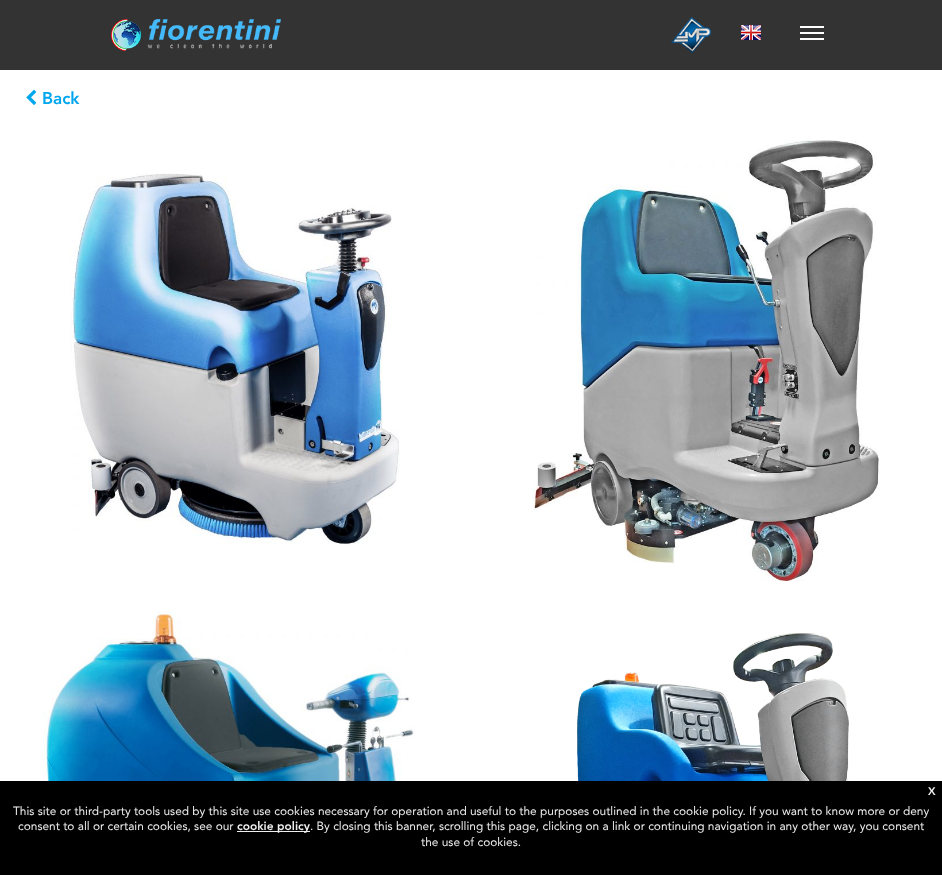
<svg xmlns="http://www.w3.org/2000/svg" width="942" height="875" viewBox="0 0 942 875">
  <rect width="100%" height="100%" fill="#fff"/>
  <path d="M0 0h942v70H0z" fill="#333"/>
  <image x="111" y="19" width="170" height="32" href="img/1.png"/>
  <image x="671" y="17" width="40" height="37" href="img/2.png"/>
  <image x="741" y="25" width="20" height="15" href="img/3.png"/>
  <path d="M800 26h24v2H800z" fill="#fff"/>
  <path d="M800 32h24v2H800z" fill="#fff"/>
  <path d="M800 38h24v2H800z" fill="#fff"/>
  <image x="26" y="89" width="11" height="16" href="img/4.png"/>
  <image x="70" y="173" width="330" height="372" href="img/5.png"/>
  <image x="532" y="140" width="347" height="441" href="img/6.png"/>
  <image x="42" y="611" width="373" height="170" href="img/7.png"/>
  <image x="577" y="633" width="272" height="148" href="img/8.png"/>
  <path d="M0 781h942v94H0z" fill="#000"/>
  <path d="M237 831h73v1H237z" fill="#eee"/>
  <text x="42" y="104" font-family="Avenir" font-size="17" font-weight="900" fill="#00a7ee">Back</text>
  <text x="928" y="795" font-family="Avenir" font-size="11" font-weight="900" fill="#eee">X</text>
  <g font-family="Avenir" font-size="11.9" fill="#eee">
    <text x="13" y="815">This site or third-party tools used by this site use cookies necessary for operation and useful to the purposes outlined in the cookie policy. If you want to know more or deny</text>
    <text x="18" y="830">consent to all or certain cookies, see our</text>
  </g>
  <text x="237" y="830" font-family="Avenir" font-size="11.9" font-weight="900" fill="#eee">cookie policy</text>
  <g font-family="Avenir" font-size="11.9" fill="#eee">
    <text x="310" y="830">. By closing this banner, scrolling this page, clicking on a link or continuing navigation in any other way, you consent</text>
    <text x="421" y="846">the use of cookies.</text>
  </g>
</svg>
